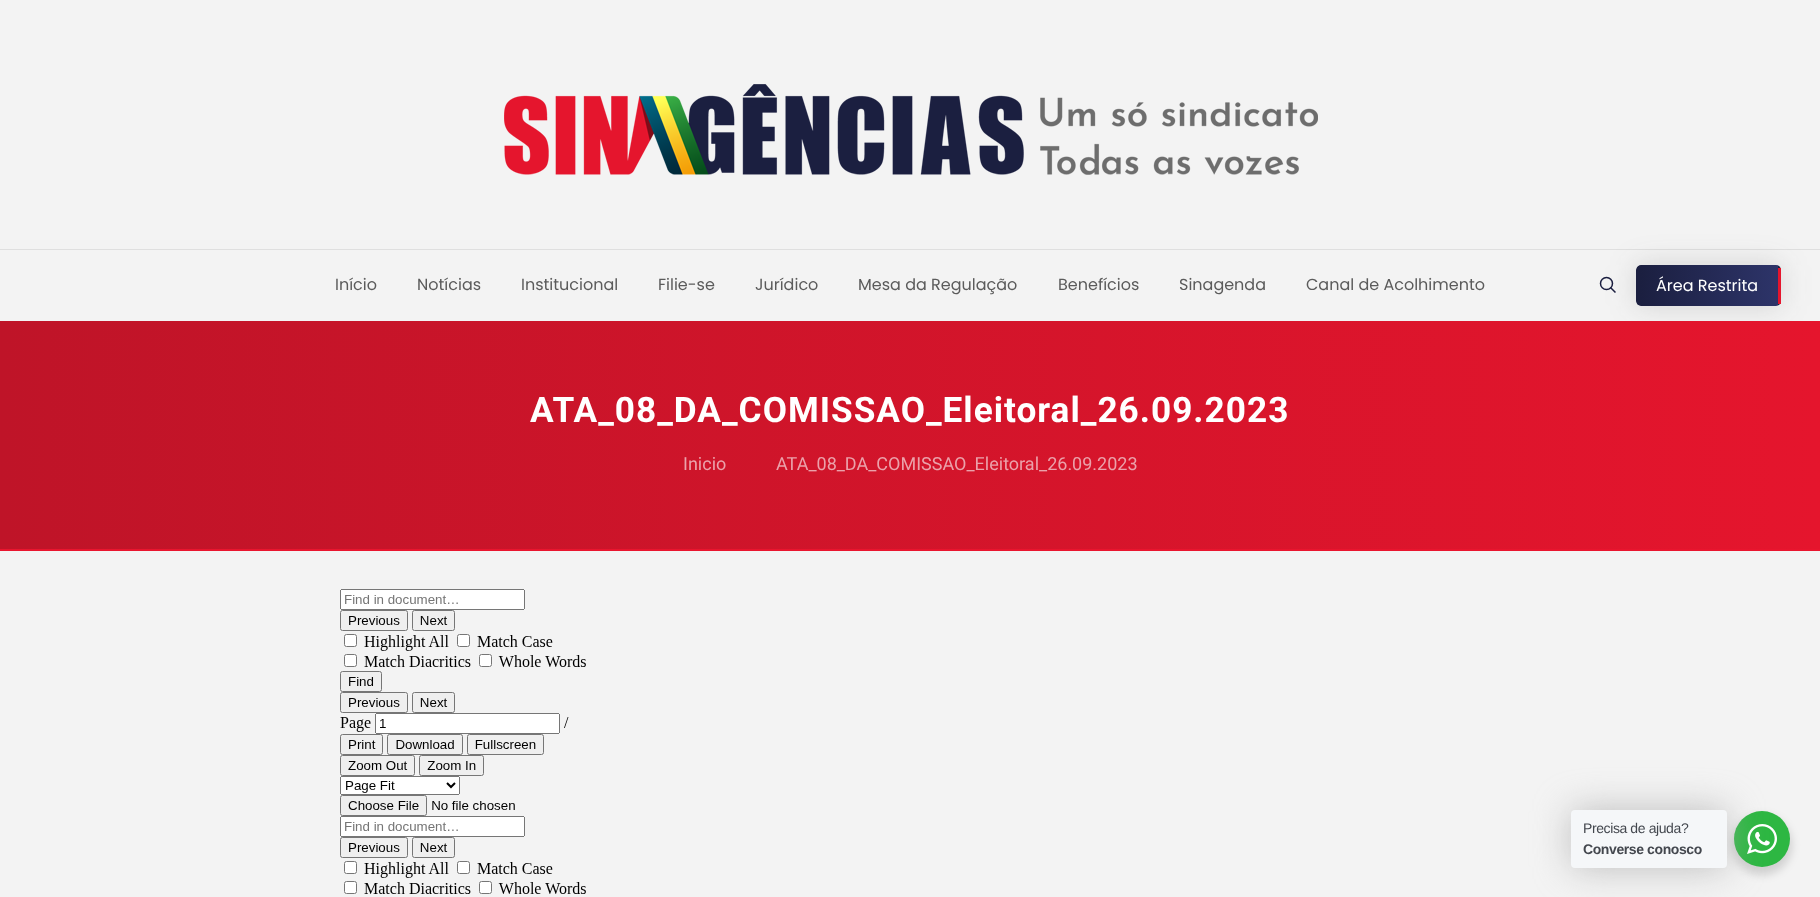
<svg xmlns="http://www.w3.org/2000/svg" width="1820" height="897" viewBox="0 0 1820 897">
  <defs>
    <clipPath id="clip1"><rect x="1636" y="265" width="145" height="41" rx="5"/></clipPath>
    <linearGradient id="g1" gradientUnits="userSpaceOnUse" x1="1636" y1="286" x2="1778" y2="286"><stop offset="0.03" stop-color="#1b1f40"/><stop offset="1" stop-color="#2d3469"/></linearGradient>
    <linearGradient id="g2" gradientUnits="userSpaceOnUse" x1="1778" y1="286" x2="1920" y2="286"><stop offset="0.03" stop-color="#1b1f40"/><stop offset="1" stop-color="#2d3469"/></linearGradient>
    <linearGradient id="g3" gradientUnits="userSpaceOnUse" x1="0" y1="435" x2="1820" y2="435"><stop offset="0" stop-color="#bf1428"/><stop offset="1" stop-color="#e5152d"/></linearGradient>
  </defs>
  <rect width="100%" height="100%" fill="#f3f3f3"/>
  <path d="M0 249h1820v1H0z" fill="#dfdfdf"/>
  <image x="504" y="84" width="814" height="91" href="img/1.png"/>
  <circle cx="1606.5" cy="283.5" r="6" fill="none" stroke="#1b1f40" stroke-width="1.5"/>
  <path d="M1610.5 287.5L1615.5 292.5" fill="none" stroke="#1b1f40" stroke-width="1.5"/>
  <rect x="1636" y="265" width="145" height="41" rx="5" fill="#3b3b3b2b" filter="blur(15px)"/>
  <g clip-path="url(#clip1)">
    <path d="M1641 265H1778V306H1641C1638 306 1636 304 1636 301V270C1636 267 1638 265 1641 265Z" fill="url(#g1)"/>
    <path d="M1778 265h3v41H1778z" fill="url(#g2)"/>
  </g>
  <path d="M1778 268h3v36H1778z" fill="#e5152d"/>
  <path d="M0 321h1820v228H0z" fill="url(#g3)"/>
  <path d="M0 549h1820v2H0z" fill="#e9152e"/>
  <image x="340" y="589" width="246" height="305" href="img/2.png"/>
  <rect x="1732" y="815" width="60" height="60" rx="30" fill="#00000024" filter="blur(4px)"/>
  <circle cx="1762" cy="839" r="28" fill="#2db742"/>
  <rect x="1572" y="811" width="154" height="56" rx="3" fill="#adadadcc" filter="blur(18.5px)"/>
  <rect x="1571" y="810" width="156" height="58" rx="4" fill="#f5f7f9"/>
  <image x="1747" y="824" width="30" height="30" href="img/3.png"/>
  <g font-family="Poppins" font-size="16" fill="#5b5b5b">
    <text x="335" y="290">Início</text>
    <text x="417" y="290">Notícias</text>
    <text x="521" y="290">Institucional</text>
    <text x="658" y="290">Filie-se</text>
    <text x="755" y="290">Jurídico</text>
    <text x="858" y="290">Mesa da Regulação</text>
    <text x="1058" y="290">Benefícios</text>
    <text x="1179" y="290">Sinagenda</text>
    <text x="1306" y="290">Canal de Acolhimento</text>
  </g>
  <text x="1656" y="291" font-family="Poppins" font-size="16" fill="#fff">Área Restrita</text>
  <text x="530" y="422" font-family="Roboto" font-size="35.2" font-weight="bold" letter-spacing="1" fill="#fff">ATA_08_DA_COMISSAO_Eleitoral_26.09.2023</text>
  <g font-family="Roboto" font-size="18" fill="#eba1aa">
    <text x="683" y="470">Inicio</text>
    <text x="776" y="470">ATA_08_DA_COMISSAO_Eleitoral_26.09.2023</text>
  </g>
  <text x="1583" y="833" font-family="Liberation Sans" font-size="14" letter-spacing="-0.4" fill="#43474e">Precisa de ajuda?</text>
  <text x="1583" y="854" font-family="Liberation Sans" font-size="14" font-weight="bold" letter-spacing="-0.4" fill="#43474e">Converse conosco</text>
</svg>
